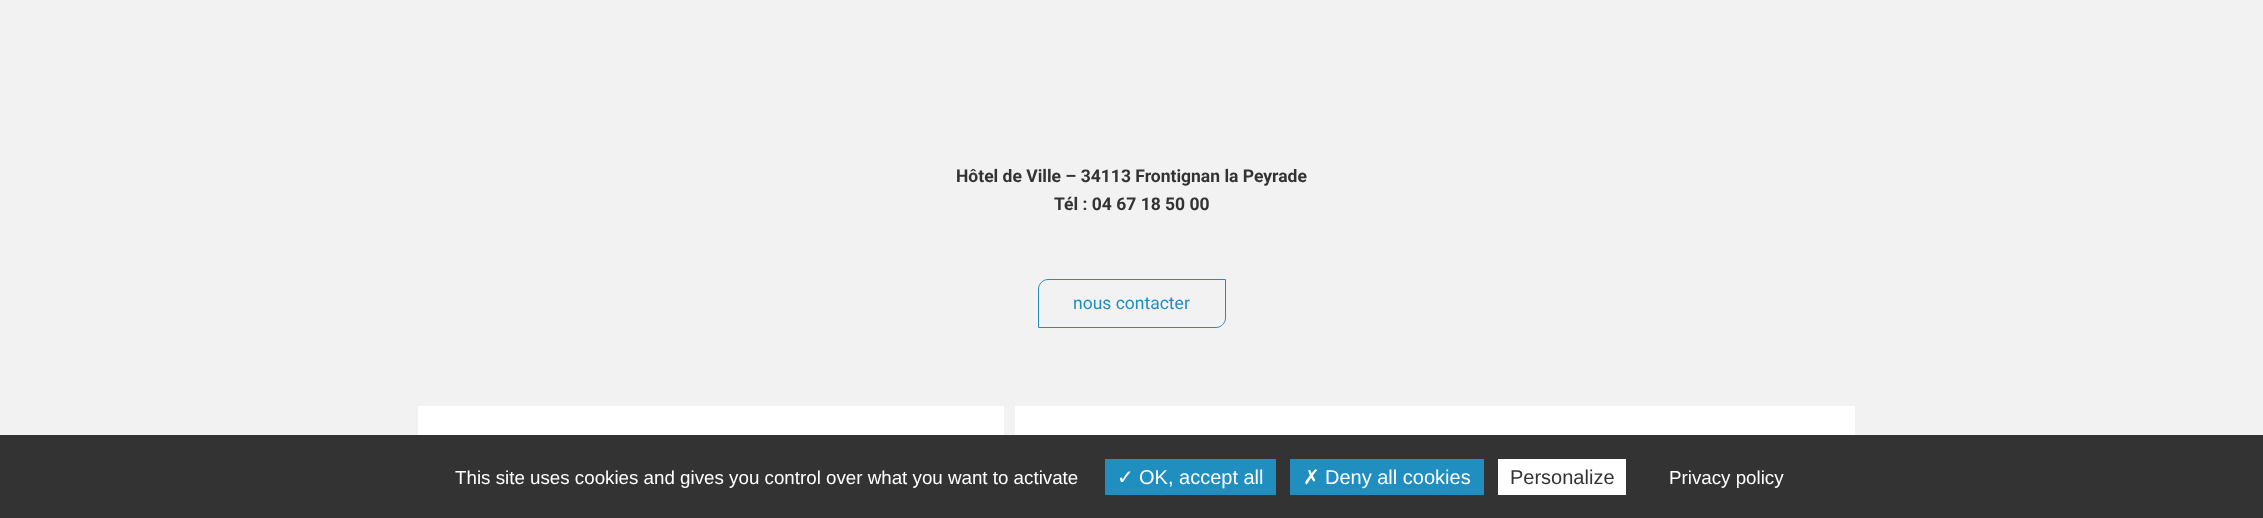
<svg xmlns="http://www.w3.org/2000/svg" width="2263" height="518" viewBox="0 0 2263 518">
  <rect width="100%" height="100%" fill="#f2f2f2"/>
  <path d="M1048 279.5H1225.5V318C1225.5 323 1221 327.5 1216 327.5H1038.5V289C1038.5 284 1043 279.5 1048 279.5Z" fill="none" stroke="#208ebf"/>
  <path d="M418 406h586v29H418z" fill="#fff"/>
  <path d="M1015 406h840v29H1015z" fill="#fff"/>
  <path d="M0 435h2263v83H0z" fill="#333"/>
  <path d="M1105 459h171v36H1105z" fill="#208ebf"/>
  <path d="M1290 459h194v36H1290z" fill="#208ebf"/>
  <path d="M1498 459h128v36H1498z" fill="#fff"/>
  <g font-family="Roboto" font-size="17.5" font-weight="bold" fill="#333">
    <text x="956" y="182">Hôtel de Ville – 34113 Frontignan la Peyrade</text>
    <text x="1054" y="210">Tél : 04 67 18 50 00</text>
  </g>
  <text x="1073" y="309" font-family="Roboto" font-size="17.5" fill="#208ebf">nous contacter</text>
  <text x="455" y="484" font-family="Liberation Sans" font-size="18.75" fill="#fff">This site uses cookies and gives you control over what you want to activate</text>
  <text x="1117" y="484" font-family="DejaVu Sans" font-size="20" fill="#fff">✓</text>
  <text x="1139" y="484" font-family="Liberation Sans" font-size="20" fill="#fff">OK, accept all</text>
  <text x="1303" y="484" font-family="DejaVu Sans" font-size="20" fill="#fff">✗</text>
  <text x="1325" y="484" font-family="Liberation Sans" font-size="20" fill="#fff">Deny all cookies</text>
  <text x="1510" y="484" font-family="Liberation Sans" font-size="20" fill="#333">Personalize</text>
  <text x="1669" y="484" font-family="Liberation Sans" font-size="18.75" fill="#fff">Privacy policy</text>
</svg>
